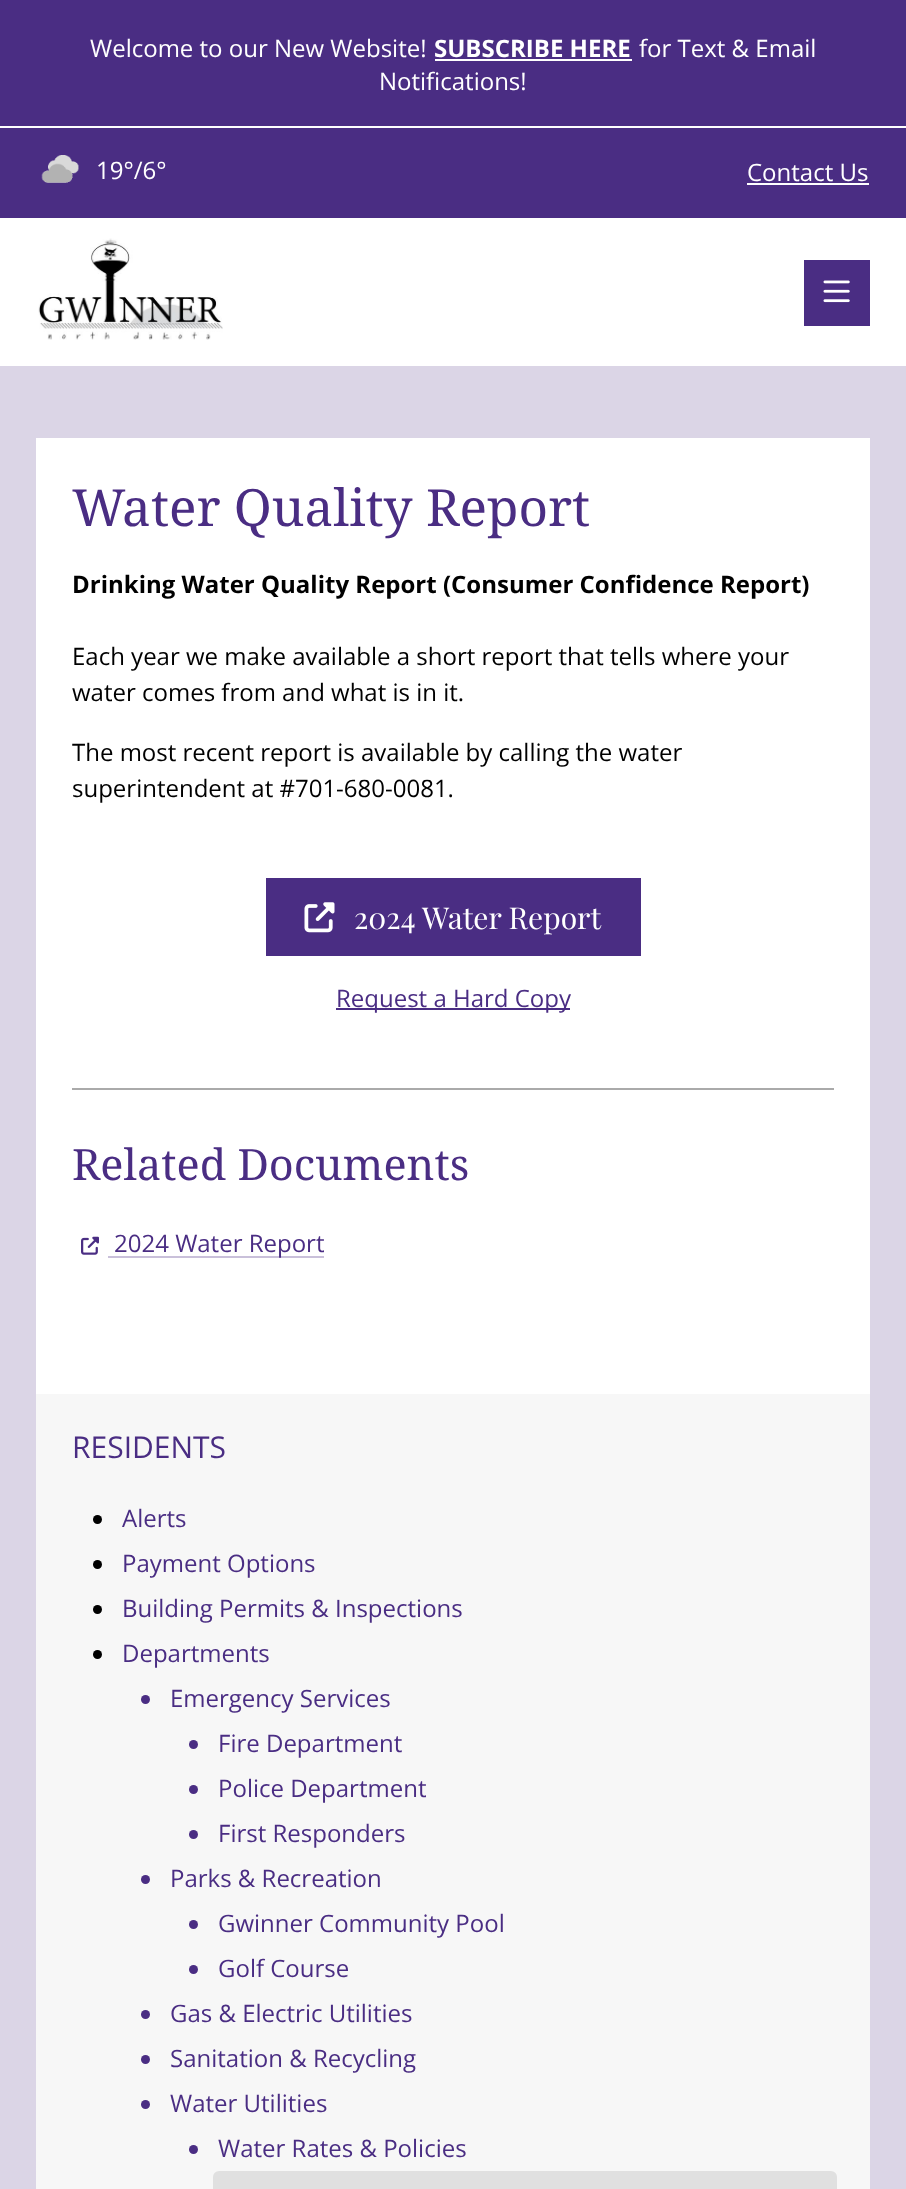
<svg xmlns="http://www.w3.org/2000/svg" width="906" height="2189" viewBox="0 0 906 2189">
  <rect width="100%" height="100%" fill="#dbd5e6"/>
  <path d="M0 0h906v218H0z" fill="#4a2d83"/>
  <path d="M0 126h906v2H0z" fill="#fff"/>
  <path d="M435 59h197v2H435z" fill="#fff"/>
  <image x="41" y="155" width="38" height="28" href="img/1.png"/>
  <path d="M747 183h122v2H747z" fill="#fff"/>
  <path d="M0 218h906v148H0z" fill="#fff"/>
  <image x="38" y="238" width="185" height="102" href="img/2.png"/>
  <path d="M804 260h66v66H804z" fill="#4a2d83"/>
  <image x="823" y="280" width="27" height="23" href="img/3.png"/>
  <path d="M36 438h834v956H36z" fill="#fff"/>
  <path d="M266 878h375v78H266z" fill="#4a2d83"/>
  <image x="304" y="902" width="31" height="31" href="img/4.png"/>
  <path d="M336 1008h234v2H336z" fill="#4a2d83"/>
  <path d="M72 1088h762v2H72z" fill="#aaa"/>
  <image x="81" y="1236" width="18" height="19" href="img/5.png"/>
  <path d="M108 1256h216v2H108z" fill="#c9c0da"/>
  <path d="M36 1394h834v795H36z" fill="#f7f7f7"/>
  <circle cx="97.5" cy="1519.5" r="4.5" fill="#000"/>
  <circle cx="97.5" cy="1564.5" r="4.5" fill="#000"/>
  <circle cx="97.5" cy="1609.5" r="4.5" fill="#000"/>
  <circle cx="97.5" cy="1654.5" r="4.5" fill="#000"/>
  <circle cx="145.5" cy="1699.5" r="4.5" fill="#4a2d83"/>
  <circle cx="193.5" cy="1744.5" r="4.5" fill="#4a2d83"/>
  <circle cx="193.5" cy="1789.5" r="4.5" fill="#4a2d83"/>
  <circle cx="193.5" cy="1834.5" r="4.5" fill="#4a2d83"/>
  <circle cx="145.5" cy="1879.5" r="4.5" fill="#4a2d83"/>
  <circle cx="193.5" cy="1924.5" r="4.5" fill="#4a2d83"/>
  <circle cx="193.5" cy="1969.5" r="4.5" fill="#4a2d83"/>
  <circle cx="145.5" cy="2014.5" r="4.5" fill="#4a2d83"/>
  <circle cx="145.5" cy="2059.5" r="4.5" fill="#4a2d83"/>
  <circle cx="145.5" cy="2104.5" r="4.5" fill="#4a2d83"/>
  <circle cx="193.5" cy="2149.5" r="4.5" fill="#4a2d83"/>
  <rect x="213" y="2171" width="624" height="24" rx="6" fill="#e0e0e0"/>
  <text x="90" y="57" font-family="Open Sans" font-size="24" fill="#fff">Welcome to our New Website!</text>
  <text x="434" y="57" font-family="Open Sans" font-size="24" font-weight="bold" fill="#fff">SUBSCRIBE HERE</text>
  <g font-family="Open Sans" font-size="24" fill="#fff">
    <text x="639" y="57">for Text &amp; Email</text>
    <text x="379" y="90">Notifications!</text>
    <text x="96" y="179">19°/6°</text>
    <text x="747" y="181">Contact Us</text>
  </g>
  <text x="72" y="526" font-family="Noto Serif" font-size="51.25" fill="#4a2d83">Water Quality Report</text>
  <text x="72" y="593" font-family="Open Sans" font-size="24" font-weight="bold" fill="#000">Drinking Water Quality Report (Consumer Confidence Report)</text>
  <g font-family="Open Sans" font-size="24" fill="#000">
    <text x="72" y="665">Each year we make available a short report that tells where your</text>
    <text x="72" y="701">water comes from and what is in it.</text>
    <text x="72" y="761">The most recent report is available by calling the water</text>
    <text x="72" y="797">superintendent at #701-680-0081.</text>
  </g>
  <text x="354" y="929" font-family="Playfair Display" font-size="30" fill="#fff">2024 Water Report</text>
  <text x="336" y="1007" font-family="Open Sans" font-size="24" fill="#4a2d83">Request a Hard Copy</text>
  <text x="72" y="1180" font-family="Noto Serif" font-size="43.25" fill="#4a2d83">Related Documents</text>
  <text x="114" y="1252" font-family="Open Sans" font-size="24" fill="#4a2d83">2024 Water Report</text>
  <text x="72" y="1458" font-family="Open Sans" font-size="30" fill="#4a2d83">RESIDENTS</text>
  <g font-family="Open Sans" font-size="24" fill="#4a2d83">
    <text x="122" y="1527">Alerts</text>
    <text x="122" y="1572">Payment Options</text>
    <text x="122" y="1617">Building Permits &amp; Inspections</text>
    <text x="122" y="1662">Departments</text>
    <text x="170" y="1707">Emergency Services</text>
    <text x="218" y="1752">Fire Department</text>
    <text x="218" y="1797">Police Department</text>
    <text x="218" y="1842">First Responders</text>
    <text x="170" y="1887">Parks &amp; Recreation</text>
    <text x="218" y="1932">Gwinner Community Pool</text>
    <text x="218" y="1977">Golf Course</text>
    <text x="170" y="2022">Gas &amp; Electric Utilities</text>
    <text x="170" y="2067">Sanitation &amp; Recycling</text>
    <text x="170" y="2112">Water Utilities</text>
    <text x="218" y="2157">Water Rates &amp; Policies</text>
  </g>
</svg>
